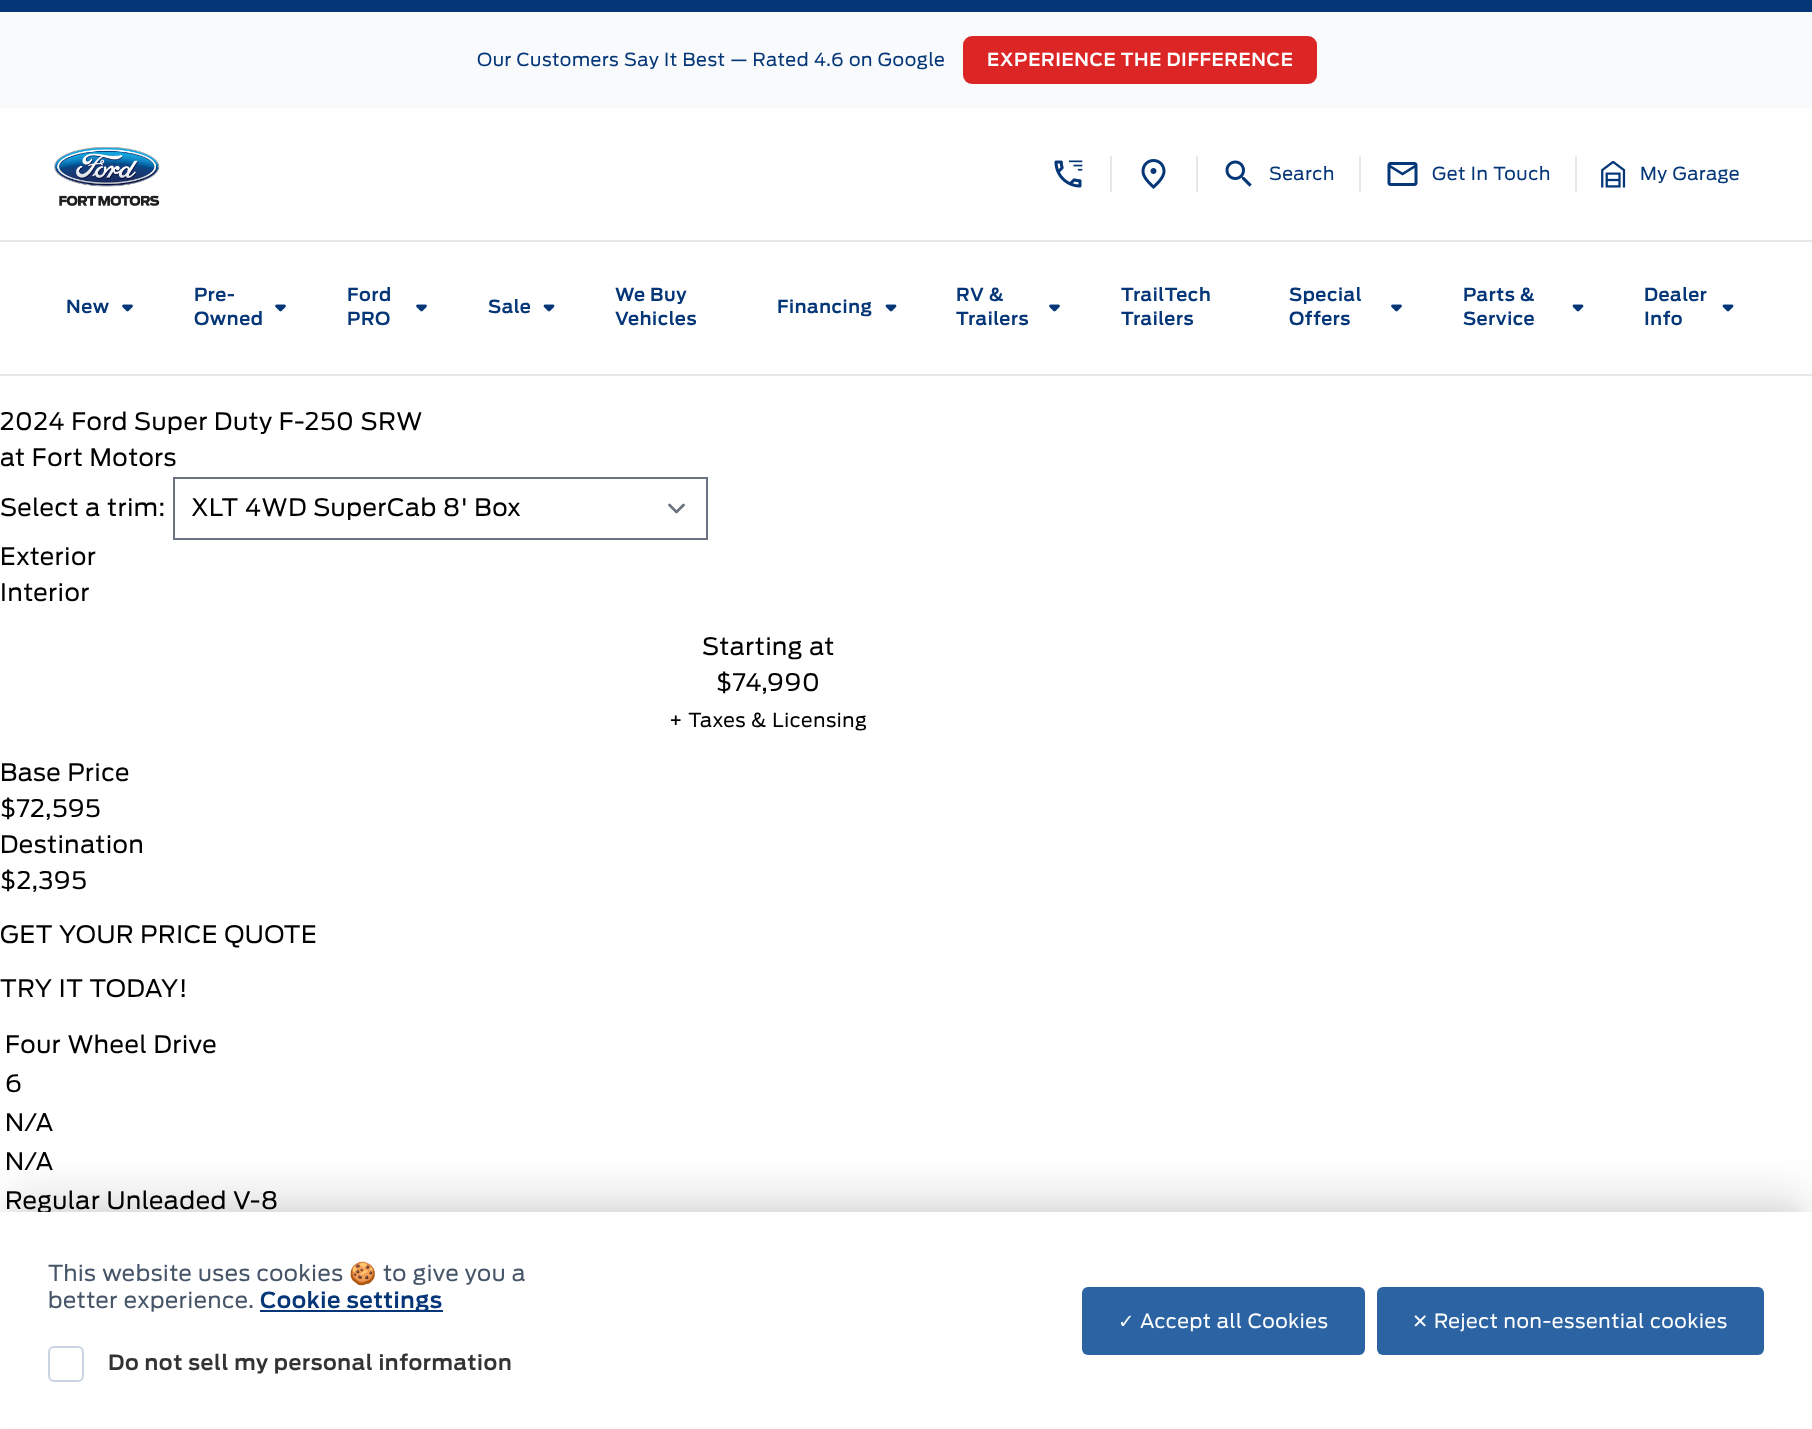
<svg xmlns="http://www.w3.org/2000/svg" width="1812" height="1429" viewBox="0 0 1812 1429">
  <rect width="100%" height="100%" fill="#fff"/>
  <path d="M0 0h1812v12H0z" fill="#053677"/>
  <path d="M0 12h1812v96H0z" fill="#f8fafc"/>
  <rect x="963" y="36" width="354" height="48" rx="9" fill="#dc2626"/>
  <path d="M0 240h1812v2H0z" fill="#e5e7eb"/>
  <image x="54" y="147" width="106" height="59" href="img/1.png"/>
  <image x="1054" y="160" width="29" height="28" href="img/2.png"/>
  <path d="M1110 156h2v36H1110z" fill="#e5e7eb"/>
  <image x="1141" y="159" width="25" height="30" href="img/3.png"/>
  <path d="M1196 156h2v36H1196z" fill="#e5e7eb"/>
  <image x="1225" y="160" width="27" height="27" href="img/4.png"/>
  <path d="M1359 156h2v36H1359z" fill="#e5e7eb"/>
  <image x="1387" y="162" width="31" height="24" href="img/5.png"/>
  <path d="M1575 156h2v36H1575z" fill="#e5e7eb"/>
  <image x="1601" y="161" width="25" height="27" href="img/6.png"/>
  <path d="M0 374h1812v2H0z" fill="#e5e7eb"/>
  <image x="122" y="304" width="11" height="8" href="img/7.png"/>
  <image x="275" y="304" width="11" height="8" href="img/7.png"/>
  <image x="416" y="304" width="11" height="8" href="img/7.png"/>
  <image x="543" y="304" width="12" height="8" href="img/8.png"/>
  <image x="885" y="304" width="12" height="8" href="img/8.png"/>
  <image x="1049" y="304" width="11" height="8" href="img/7.png"/>
  <image x="1391" y="304" width="11" height="8" href="img/7.png"/>
  <image x="1572" y="304" width="12" height="8" href="img/8.png"/>
  <image x="1722" y="304" width="12" height="8" href="img/8.png"/>
  <path d="M669.5 505L676.5 512L683.5 505" fill="none" stroke="#6b7280" stroke-width="2.7" stroke-linecap="round" stroke-linejoin="round"/>
  <path d="M174 478h533v61H174z" fill="none" stroke="#6b7280" stroke-width="2"/>
  <path d="M8 1205h1797v202H8z" fill="#0000000a" filter="blur(7.5px)"/>
  <path d="M8 1190h1797v202H8z" fill="#0000001a" filter="blur(19px)"/>
  <text x="477" y="66" font-family="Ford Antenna" font-size="18" letter-spacing="0.6" fill="#053677">Our Customers Say It Best — Rated 4.6 on Google</text>
  <text x="987" y="66" font-family="Ford Antenna" font-size="18" font-weight="600" letter-spacing="0.6" fill="#fff">EXPERIENCE THE DIFFERENCE</text>
  <g font-family="Ford Antenna" font-size="18" letter-spacing="0.6" fill="#053677">
    <text x="1269" y="180">Search</text>
    <text x="1432" y="180">Get In Touch</text>
    <text x="1640" y="180">My Garage</text>
  </g>
  <g font-family="Ford Antenna" font-size="18" font-weight="600" letter-spacing="0.6" fill="#053677">
    <text x="66" y="313">New</text>
    <text x="194" y="301">Pre-</text>
    <text x="194" y="325">Owned</text>
    <text x="347" y="301">Ford</text>
    <text x="347" y="325">PRO</text>
    <text x="488" y="313">Sale</text>
    <text x="615" y="301">We Buy</text>
    <text x="615" y="325">Vehicles</text>
    <text x="777" y="313">Financing</text>
    <text x="956" y="301">RV &amp;</text>
    <text x="956" y="325">Trailers</text>
    <text x="1121" y="301">TrailTech</text>
    <text x="1121" y="325">Trailers</text>
    <text x="1289" y="301">Special</text>
    <text x="1289" y="325">Offers</text>
    <text x="1463" y="301">Parts &amp;</text>
    <text x="1463" y="325">Service</text>
    <text x="1644" y="301">Dealer</text>
    <text x="1644" y="325">Info</text>
  </g>
  <g font-family="Ford Antenna" font-size="24" letter-spacing="0.6" fill="#000">
    <text x="0" y="430">2024 Ford Super Duty F-250 SRW</text>
    <text x="0" y="466">at Fort Motors</text>
    <text x="0" y="516">Select a trim:</text>
    <text x="191" y="516">XLT 4WD SuperCab 8' Box</text>
    <text x="0" y="565">Exterior</text>
    <text x="0" y="601">Interior</text>
    <text x="702" y="655">Starting at</text>
    <text x="716" y="691">$74,990</text>
  </g>
  <text x="669" y="727" font-family="Ford Antenna" font-size="19.25" letter-spacing="0.6" fill="#000">+ Taxes &amp; Licensing</text>
  <g font-family="Ford Antenna" font-size="24" letter-spacing="0.6" fill="#000">
    <text x="0" y="781">Base Price</text>
    <text x="0" y="817">$72,595</text>
    <text x="0" y="853">Destination</text>
    <text x="0" y="889">$2,395</text>
    <text x="0" y="943">GET YOUR PRICE QUOTE</text>
    <text x="0" y="997">TRY IT TODAY!</text>
    <text x="5" y="1053">Four Wheel Drive</text>
    <text x="5" y="1092">6</text>
    <text x="5" y="1131">N/A</text>
    <text x="5" y="1170">N/A</text>
    <text x="5" y="1209">Regular Unleaded V-8</text>
  </g>
  <path d="M0 1212h1812v207H0z" fill="#fff"/>
  <text x="48" y="1281" font-family="Ford Antenna" font-size="22" letter-spacing="0.6" fill="#475569">This website uses cookies</text>
  <text x="349" y="1281" font-family="Noto Color Emoji" font-size="22" letter-spacing="0.6" fill="#475569">🍪</text>
  <g font-family="Ford Antenna" font-size="22" letter-spacing="0.6" fill="#475569">
    <text x="383" y="1281">to give you a</text>
    <text x="48" y="1308">better experience.</text>
  </g>
  <path d="M260 1310h183v2H260z" fill="#053677"/>
  <text x="260" y="1308" font-family="Ford Antenna" font-size="22" font-weight="600" letter-spacing="0.6" fill="#053677">Cookie settings</text>
  <rect x="49" y="1347" width="34" height="34" rx="5" fill="none" stroke="#cbd5e1" stroke-width="2"/>
  <text x="108" y="1370" font-family="Ford Antenna" font-size="21" font-weight="600" letter-spacing="0.6" fill="#333">Do not sell my personal information</text>
  <rect x="1082" y="1287" width="283" height="68" rx="6" fill="#2c63a2"/>
  <text x="1118" y="1328" font-family="DejaVu Sans" font-size="19.5" letter-spacing="0.6" fill="#fff">✓</text>
  <text x="1140" y="1328" font-family="Ford Antenna" font-size="19.5" letter-spacing="0.6" fill="#fff">Accept all Cookies</text>
  <rect x="1377" y="1287" width="387" height="68" rx="6" fill="#2c63a2"/>
  <text x="1412" y="1328" font-family="DejaVu Sans" font-size="19.5" letter-spacing="0.6" fill="#fff">✕</text>
  <text x="1434" y="1328" font-family="Ford Antenna" font-size="19.5" letter-spacing="0.6" fill="#fff">Reject non-essential cookies</text>
</svg>
